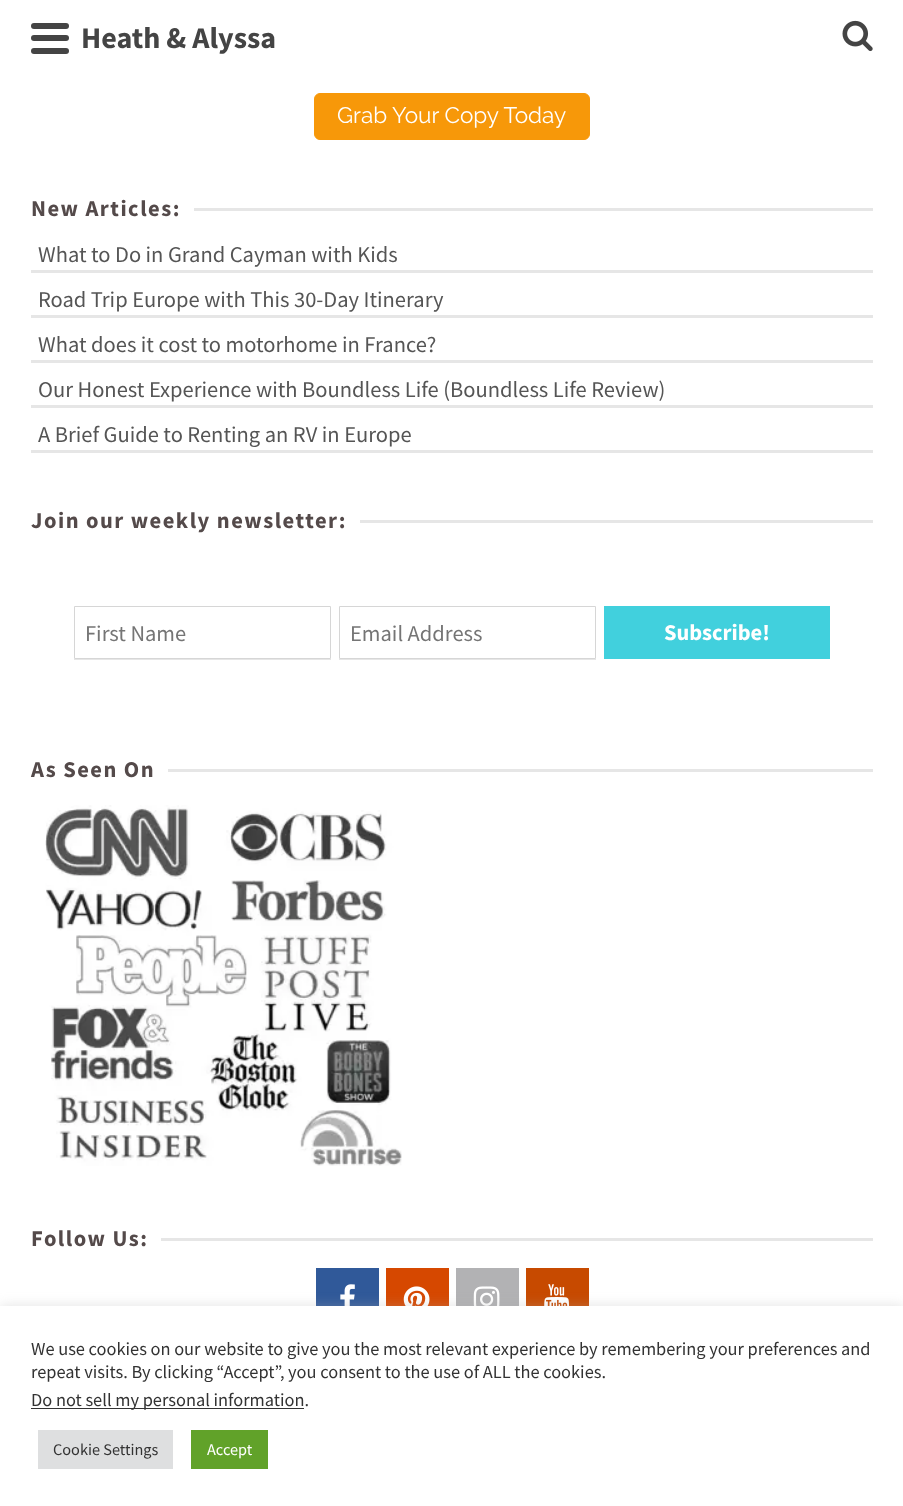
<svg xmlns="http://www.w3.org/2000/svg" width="903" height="1506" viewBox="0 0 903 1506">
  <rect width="100%" height="100%" fill="#fff"/>
  <rect x="31" y="23" width="38" height="6" rx="3" fill="#444"/>
  <rect x="31" y="35" width="38" height="6" rx="3" fill="#444"/>
  <rect x="31" y="48" width="38" height="6" rx="3" fill="#444"/>
  <image x="842" y="20" width="31" height="32" href="img/1.png"/>
  <rect x="314.5" y="93.5" width="275" height="46" rx="5.5" fill="#f79809" stroke="#f79809"/>
  <path d="M194 208h679v3H194z" fill="#e6e6e6"/>
  <path d="M31 270h842v3H31z" fill="#e6e6e6"/>
  <path d="M31 315h842v3H31z" fill="#e6e6e6"/>
  <path d="M31 360h842v3H31z" fill="#e6e6e6"/>
  <path d="M31 405h842v3H31z" fill="#e6e6e6"/>
  <path d="M31 450h842v3H31z" fill="#e6e6e6"/>
  <path d="M360 520h513v3H360z" fill="#e6e6e6"/>
  <path d="M74 659h257v1H74z" fill="#e6e6e6"/>
  <path d="M74.5 606.5h256v52H74.5z" fill="none" stroke="#d6d6d6"/>
  <path d="M339 659h257v1H339z" fill="#e6e6e6"/>
  <path d="M339.5 606.5h256v52H339.5z" fill="none" stroke="#d6d6d6"/>
  <path d="M604 606h226v53H604z" fill="#41d0dd"/>
  <path d="M168 769h705v3H168z" fill="#e6e6e6"/>
  <image x="45" y="805" width="357" height="361" href="img/2.png"/>
  <path d="M161 1238h712v3H161z" fill="#e6e6e6"/>
  <path d="M316 1268h63v38H316z" fill="#305999"/>
  <image x="340" y="1284" width="15" height="22" href="img/3.png"/>
  <path d="M386 1268h63v38H386z" fill="#d64800"/>
  <image x="403" y="1286" width="27" height="20" href="img/4.png"/>
  <path d="M456 1268h63v38H456z" fill="#b2b2b4"/>
  <image x="473" y="1286" width="27" height="20" href="img/5.png"/>
  <path d="M526 1268h63v38H526z" fill="#c74a00"/>
  <image x="544" y="1284" width="25" height="22" href="img/6.png"/>
  <path d="M0 1305h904v200H0z" fill="#acabab4d" filter="blur(6px)"/>
  <path d="M0 1306h903v200H0z" fill="#fff"/>
  <path d="M31 1408h273v1H31z" fill="#333"/>
  <path d="M38 1430h135v39H38z" fill="#dedfe0"/>
  <path d="M191 1430h77v39H191z" fill="#61a229"/>
  <text x="81" y="48" font-family="Source Sans Pro" font-size="30" font-weight="bold" fill="#444">Heath &amp; Alyssa</text>
  <text x="337" y="123" font-family="Raleway" font-size="22.5" fill="#fff">Grab Your Copy Today</text>
  <text x="31" y="216" font-family="Source Sans Pro" font-size="22.5" font-weight="bold" letter-spacing="1.5" fill="#544a4a">New Articles:</text>
  <g font-family="Source Sans Pro" font-size="22.5" fill="#555">
    <text x="38" y="262">What to Do in Grand Cayman with Kids</text>
    <text x="38" y="307">Road Trip Europe with This 30-Day Itinerary</text>
    <text x="38" y="352">What does it cost to motorhome in France?</text>
    <text x="38" y="397">Our Honest Experience with Boundless Life (Boundless Life Review)</text>
    <text x="38" y="442">A Brief Guide to Renting an RV in Europe</text>
  </g>
  <text x="31" y="528" font-family="Source Sans Pro" font-size="22.5" font-weight="bold" letter-spacing="1.5" fill="#544a4a">Join our weekly newsletter:</text>
  <g font-family="Source Sans Pro" font-size="22.5" fill="#757575">
    <text x="85" y="641">First Name</text>
    <text x="350" y="641">Email Address</text>
  </g>
  <text x="664" y="640" font-family="Source Sans Pro" font-size="22.5" font-weight="bold" fill="#fff">Subscribe!</text>
  <g font-family="Source Sans Pro" font-size="22.5" font-weight="bold" letter-spacing="1.5" fill="#544a4a">
    <text x="31" y="777">As Seen On</text>
    <text x="31" y="1246">Follow Us:</text>
  </g>
  <g font-family="Source Sans Pro" font-size="18.35" fill="#333">
    <text x="31" y="1355">We use cookies on our website to give you the most relevant experience by remembering your preferences and</text>
    <text x="31" y="1378">repeat visits. By clicking “Accept”, you consent to the use of ALL the cookies.</text>
    <text x="31" y="1406">Do not sell my personal information.</text>
  </g>
  <text x="53" y="1455" font-family="Source Sans Pro" font-size="16.25" fill="#333">Cookie Settings</text>
  <text x="207" y="1455" font-family="Source Sans Pro" font-size="16.25" fill="#fff">Accept</text>
</svg>
